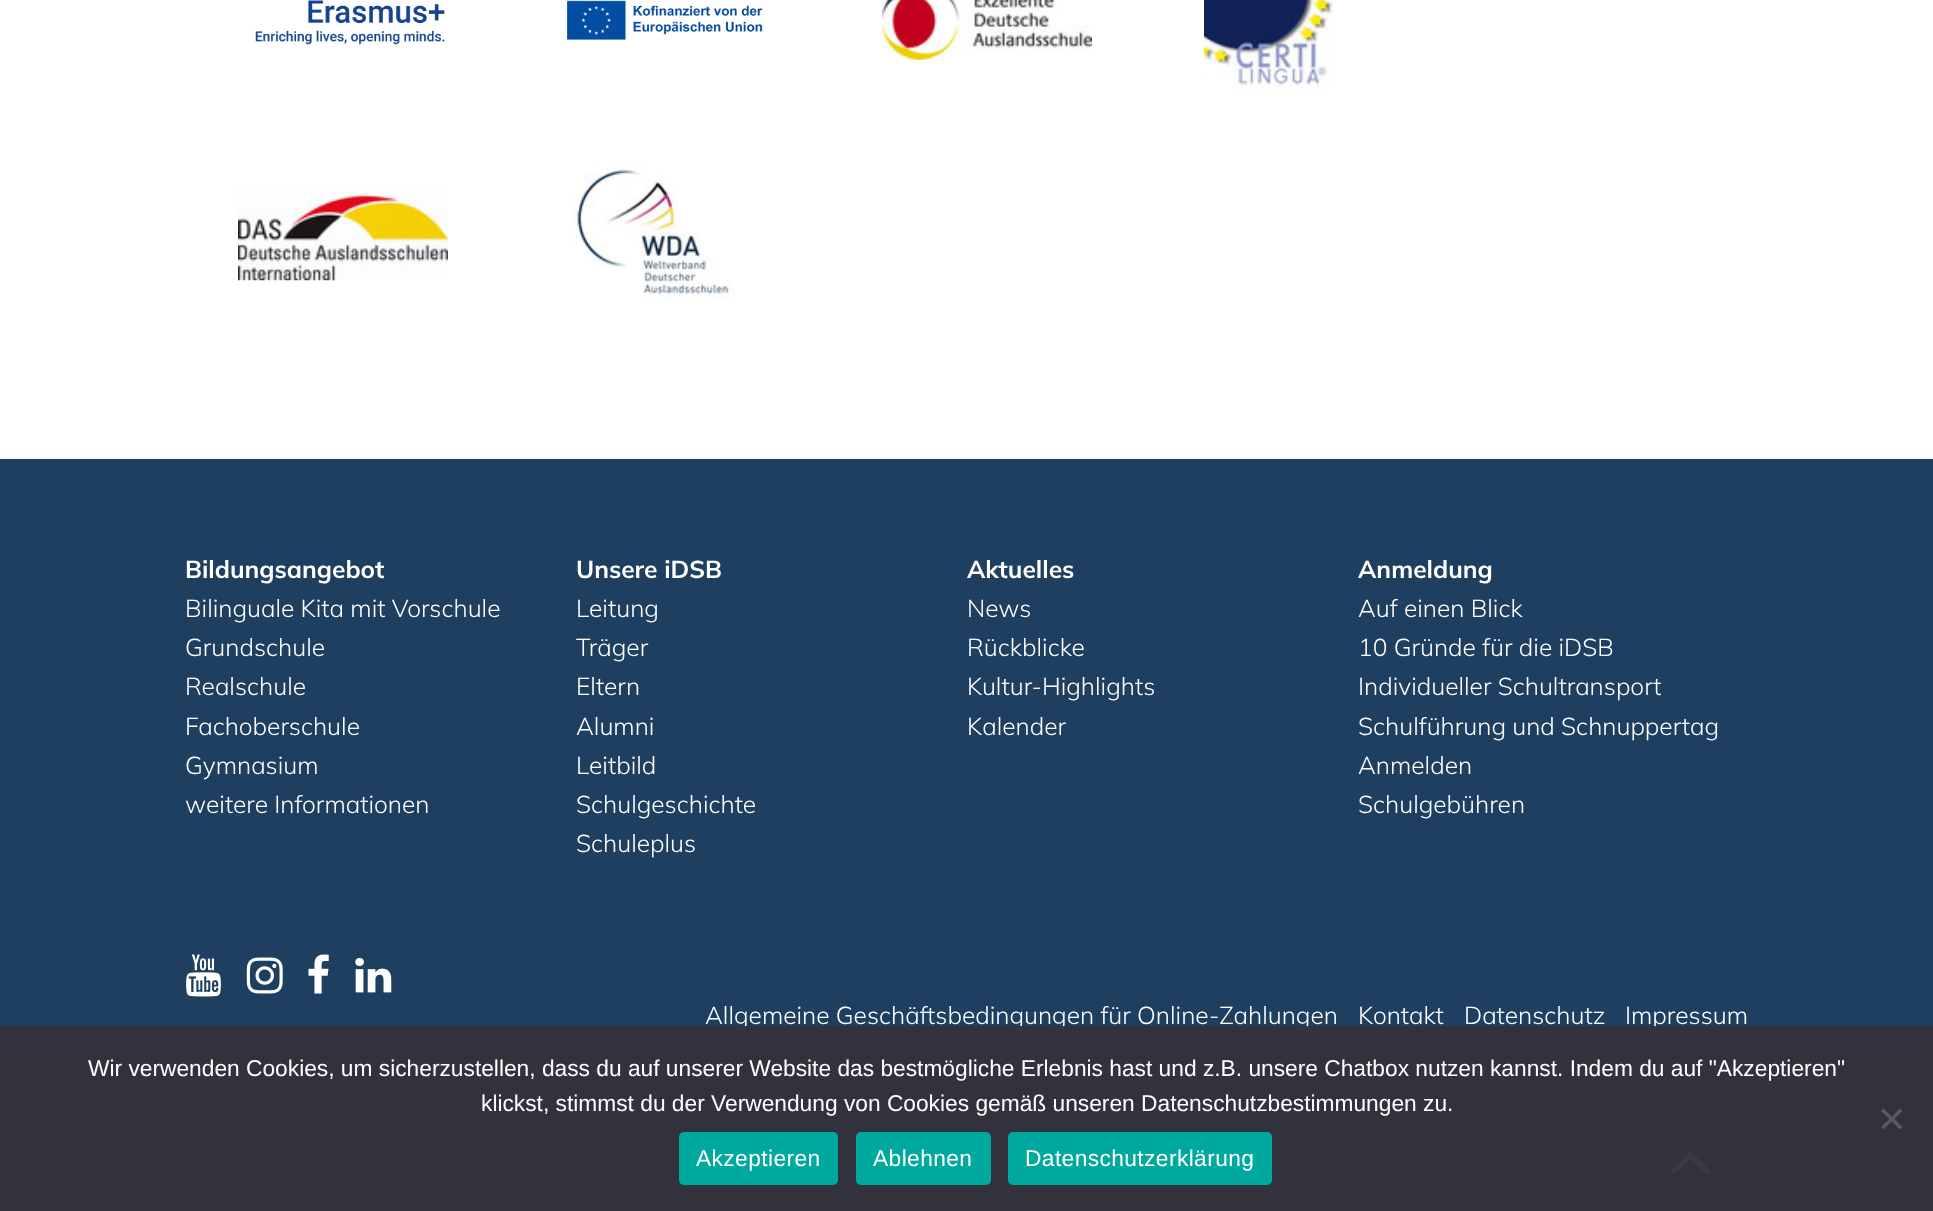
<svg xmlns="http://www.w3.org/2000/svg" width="1933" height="1211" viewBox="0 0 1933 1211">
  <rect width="100%" height="100%" fill="#fff"/>
  <image x="255" y="0" width="190" height="45" href="img/1.png"/>
  <image x="567" y="0" width="196" height="40" href="img/2.png"/>
  <image x="882" y="0" width="210" height="60" href="img/3.png"/>
  <image x="1204" y="0" width="129" height="90" href="img/4.png"/>
  <image x="238" y="185" width="210" height="96" href="img/5.png"/>
  <image x="572" y="161" width="163" height="140" href="img/6.png"/>
  <path d="M0 459h1933v752H0z" fill="#1e3f5f"/>
  <image x="186" y="954" width="35" height="43" href="img/7.png"/>
  <image x="246" y="957" width="37" height="37" href="img/8.png"/>
  <image x="308" y="954" width="21" height="40" href="img/9.png"/>
  <image x="355" y="958" width="37" height="35" href="img/10.png"/>
  <image x="1670" y="1151" width="40" height="24" href="img/11.png"/>
  <text x="185" y="578" font-family="Mulish" font-size="24.5" font-weight="200" fill="#fff">Bildungsangebot</text>
  <g font-family="'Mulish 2'" font-size="24.5" font-weight="200" fill="#fff">
    <text x="185" y="617">Bilinguale Kita mit Vorschule</text>
    <text x="185" y="656">Grundschule</text>
    <text x="185" y="695">Realschule</text>
    <text x="185" y="735">Fachoberschule</text>
    <text x="185" y="774">Gymnasium</text>
    <text x="185" y="813">weitere Informationen</text>
  </g>
  <text x="576" y="578" font-family="Mulish" font-size="24.5" font-weight="200" fill="#fff">Unsere iDSB</text>
  <g font-family="'Mulish 2'" font-size="24.5" font-weight="200" fill="#fff">
    <text x="576" y="617">Leitung</text>
    <text x="576" y="656">Träger</text>
    <text x="576" y="695">Eltern</text>
    <text x="576" y="735">Alumni</text>
    <text x="576" y="774">Leitbild</text>
    <text x="576" y="813">Schulgeschichte</text>
    <text x="576" y="852">Schuleplus</text>
  </g>
  <text x="967" y="578" font-family="Mulish" font-size="24.5" font-weight="200" fill="#fff">Aktuelles</text>
  <g font-family="'Mulish 2'" font-size="24.5" font-weight="200" fill="#fff">
    <text x="967" y="617">News</text>
    <text x="967" y="656">Rückblicke</text>
    <text x="967" y="695">Kultur-Highlights</text>
    <text x="967" y="735">Kalender</text>
  </g>
  <text x="1358" y="578" font-family="Mulish" font-size="24.5" font-weight="200" fill="#fff">Anmeldung</text>
  <g font-family="'Mulish 2'" font-size="24.5" font-weight="200" fill="#fff">
    <text x="1358" y="617">Auf einen Blick</text>
    <text x="1358" y="656">10 Gründe für die iDSB</text>
    <text x="1358" y="695">Individueller Schultransport</text>
    <text x="1358" y="735">Schulführung und Schnuppertag</text>
    <text x="1358" y="774">Anmelden</text>
    <text x="1358" y="813">Schulgebühren</text>
    <text x="705" y="1024">Allgemeine Geschäftsbedingungen für Online-Zahlungen</text>
    <text x="1358" y="1024">Kontakt</text>
    <text x="1464" y="1024">Datenschutz</text>
    <text x="1625" y="1024">Impressum</text>
  </g>
  <path d="M0 1026h1933v185H0z" fill="#32323af5"/>
  <g font-family="Liberation Sans" font-size="22.75" fill="#fff">
    <text x="88" y="1076">Wir verwenden Cookies, um sicherzustellen, dass du auf unserer Website das bestmögliche Erlebnis hast und z.B. unsere Chatbox nutzen kannst. Indem du auf "Akzeptieren"</text>
    <text x="481" y="1111">klickst, stimmst du der Verwendung von Cookies gemäß unseren Datenschutzbestimmungen zu.</text>
  </g>
  <path d="M1900 1108.5L1902.5 1111L1883.5 1129.5L1881 1127Z" fill="#59595e"/>
  <path d="M1881 1111L1883.5 1108.5L1902.5 1127L1900 1129.5Z" fill="#59595e"/>
  <rect x="679" y="1132" width="159" height="53" rx="5" fill="#00a99d"/>
  <text x="696" y="1166" font-family="Liberation Sans" font-size="22.75" letter-spacing="0.4" fill="#fff">Akzeptieren</text>
  <rect x="856" y="1132" width="135" height="53" rx="5" fill="#00a99d"/>
  <text x="873" y="1166" font-family="Liberation Sans" font-size="22.75" letter-spacing="0.4" fill="#fff">Ablehnen</text>
  <rect x="1008" y="1132" width="264" height="53" rx="5" fill="#00a99d"/>
  <text x="1025" y="1166" font-family="Liberation Sans" font-size="22.75" letter-spacing="0.4" fill="#fff">Datenschutzerklärung</text>
</svg>
